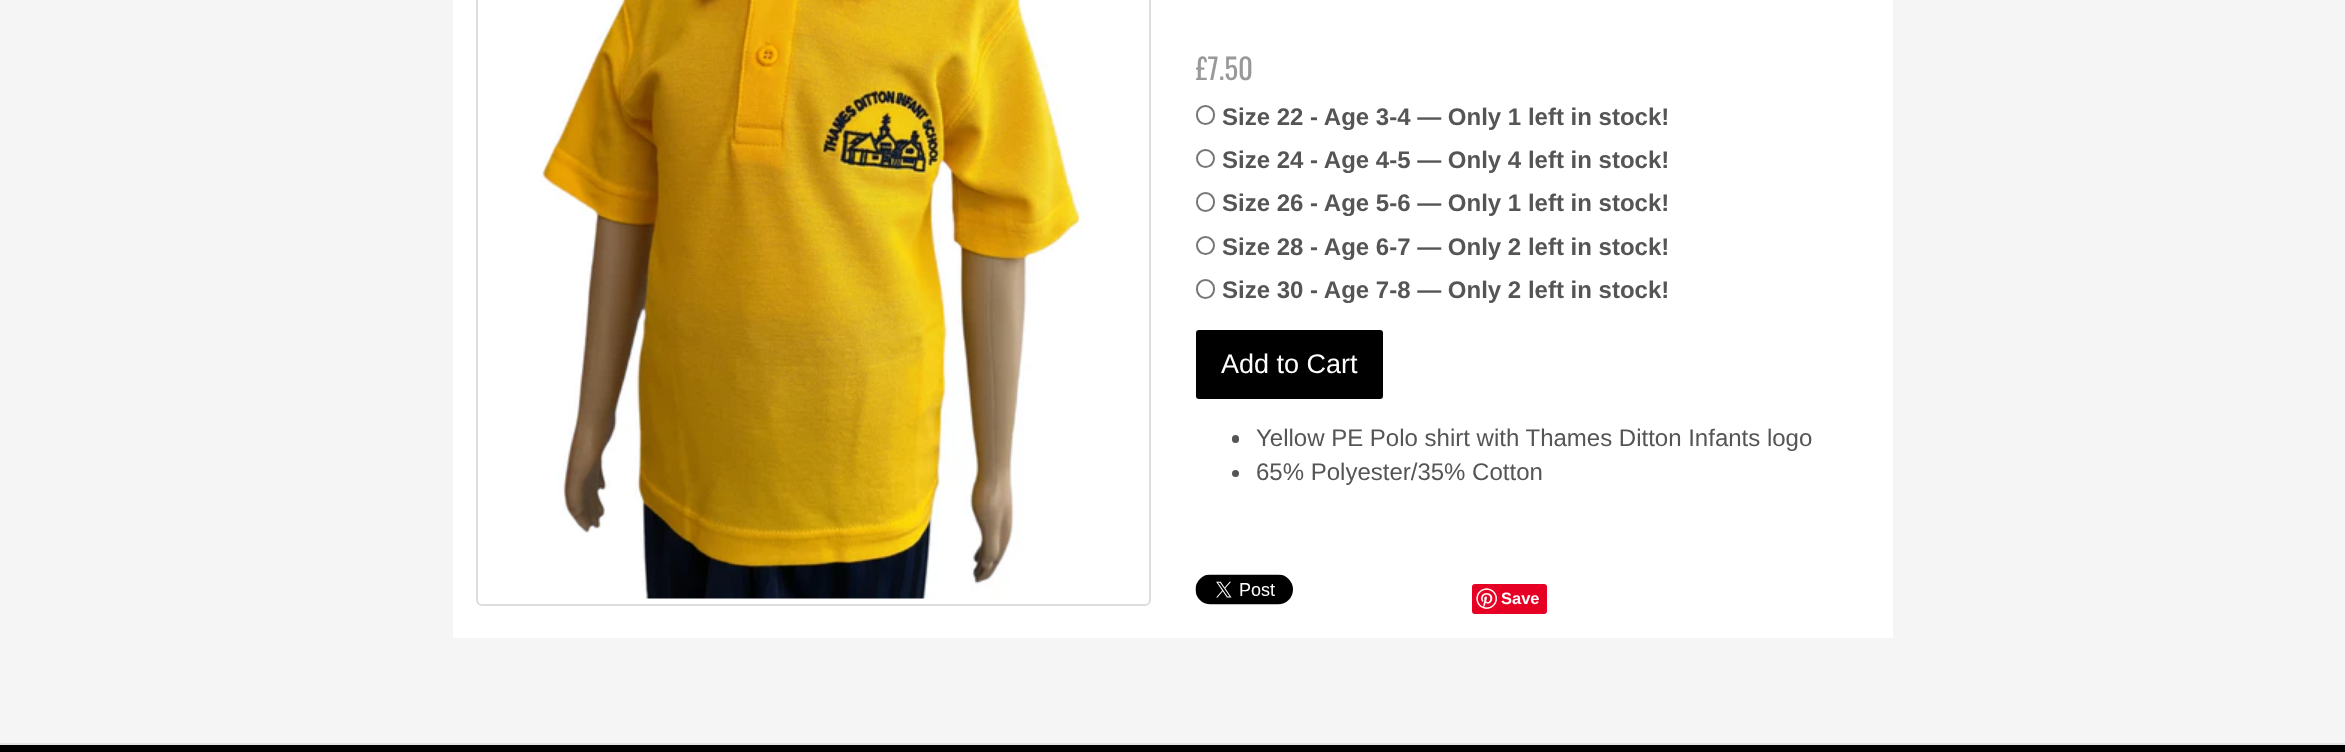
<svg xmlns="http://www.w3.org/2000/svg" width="2345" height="752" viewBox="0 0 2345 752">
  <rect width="100%" height="100%" fill="#f5f5f5"/>
  <path d="M453 0h1440v638H453z" fill="#fff"/>
  <rect x="477" y="-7" width="673" height="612" rx="5" fill="none" stroke="#ddd" stroke-width="2"/>
  <image x="541" y="0" width="543" height="599" href="img/1.png"/>
  <rect x="1197" y="106" width="17" height="18" rx="8.5" fill="none" stroke="#767676" stroke-width="2"/>
  <circle cx="1205.5" cy="158.5" r="8.5" fill="none" stroke="#767676" stroke-width="2"/>
  <rect x="1197" y="193" width="17" height="18" rx="8.5" fill="none" stroke="#767676" stroke-width="2"/>
  <circle cx="1205.5" cy="245.5" r="8.5" fill="none" stroke="#767676" stroke-width="2"/>
  <rect x="1197" y="280" width="17" height="18" rx="8.5" fill="none" stroke="#767676" stroke-width="2"/>
  <rect x="1197" y="331" width="185" height="67" rx="2" fill="#000" stroke="#000" stroke-width="2"/>
  <rect x="1232" y="435" width="7" height="8" rx="3.5" fill="#555"/>
  <circle cx="1235.5" cy="473.5" r="3.5" fill="#555"/>
  <image x="1195" y="574" width="98" height="31" href="img/2.png"/>
  <rect x="1472" y="584" width="75" height="30" rx="3" fill="#e60023"/>
  <image x="1476" y="588" width="21" height="21" href="img/3.png"/>
  <path d="M0 745h2345v7H0z" fill="#000"/>
  <path d="M0 743h2345v2H0z" fill="#e5e5e5"/>
  <text x="1196" y="80" font-family="Oswald" font-size="29" fill="#999">£7.50</text>
  <g font-family="Liberation Sans" font-size="24" font-weight="bold" fill="#555">
    <text x="1222" y="125">Size 22 - Age 3-4 — Only 1 left in stock!</text>
    <text x="1222" y="168">Size 24 - Age 4-5 — Only 4 left in stock!</text>
    <text x="1222" y="211">Size 26 - Age 5-6 — Only 1 left in stock!</text>
    <text x="1222" y="255">Size 28 - Age 6-7 — Only 2 left in stock!</text>
    <text x="1222" y="298">Size 30 - Age 7-8 — Only 2 left in stock!</text>
  </g>
  <text x="1221" y="373" font-family="Liberation Sans" font-size="27" fill="#fff">Add to Cart</text>
  <g font-family="Liberation Sans" font-size="24" fill="#555">
    <text x="1256" y="446">Yellow PE Polo shirt with Thames Ditton Infants logo</text>
    <text x="1256" y="480">65% Polyester/35% Cotton</text>
  </g>
  <text x="1501" y="604" font-family="Liberation Sans" font-size="16.5" font-weight="bold" fill="#fff">Save</text>
</svg>
